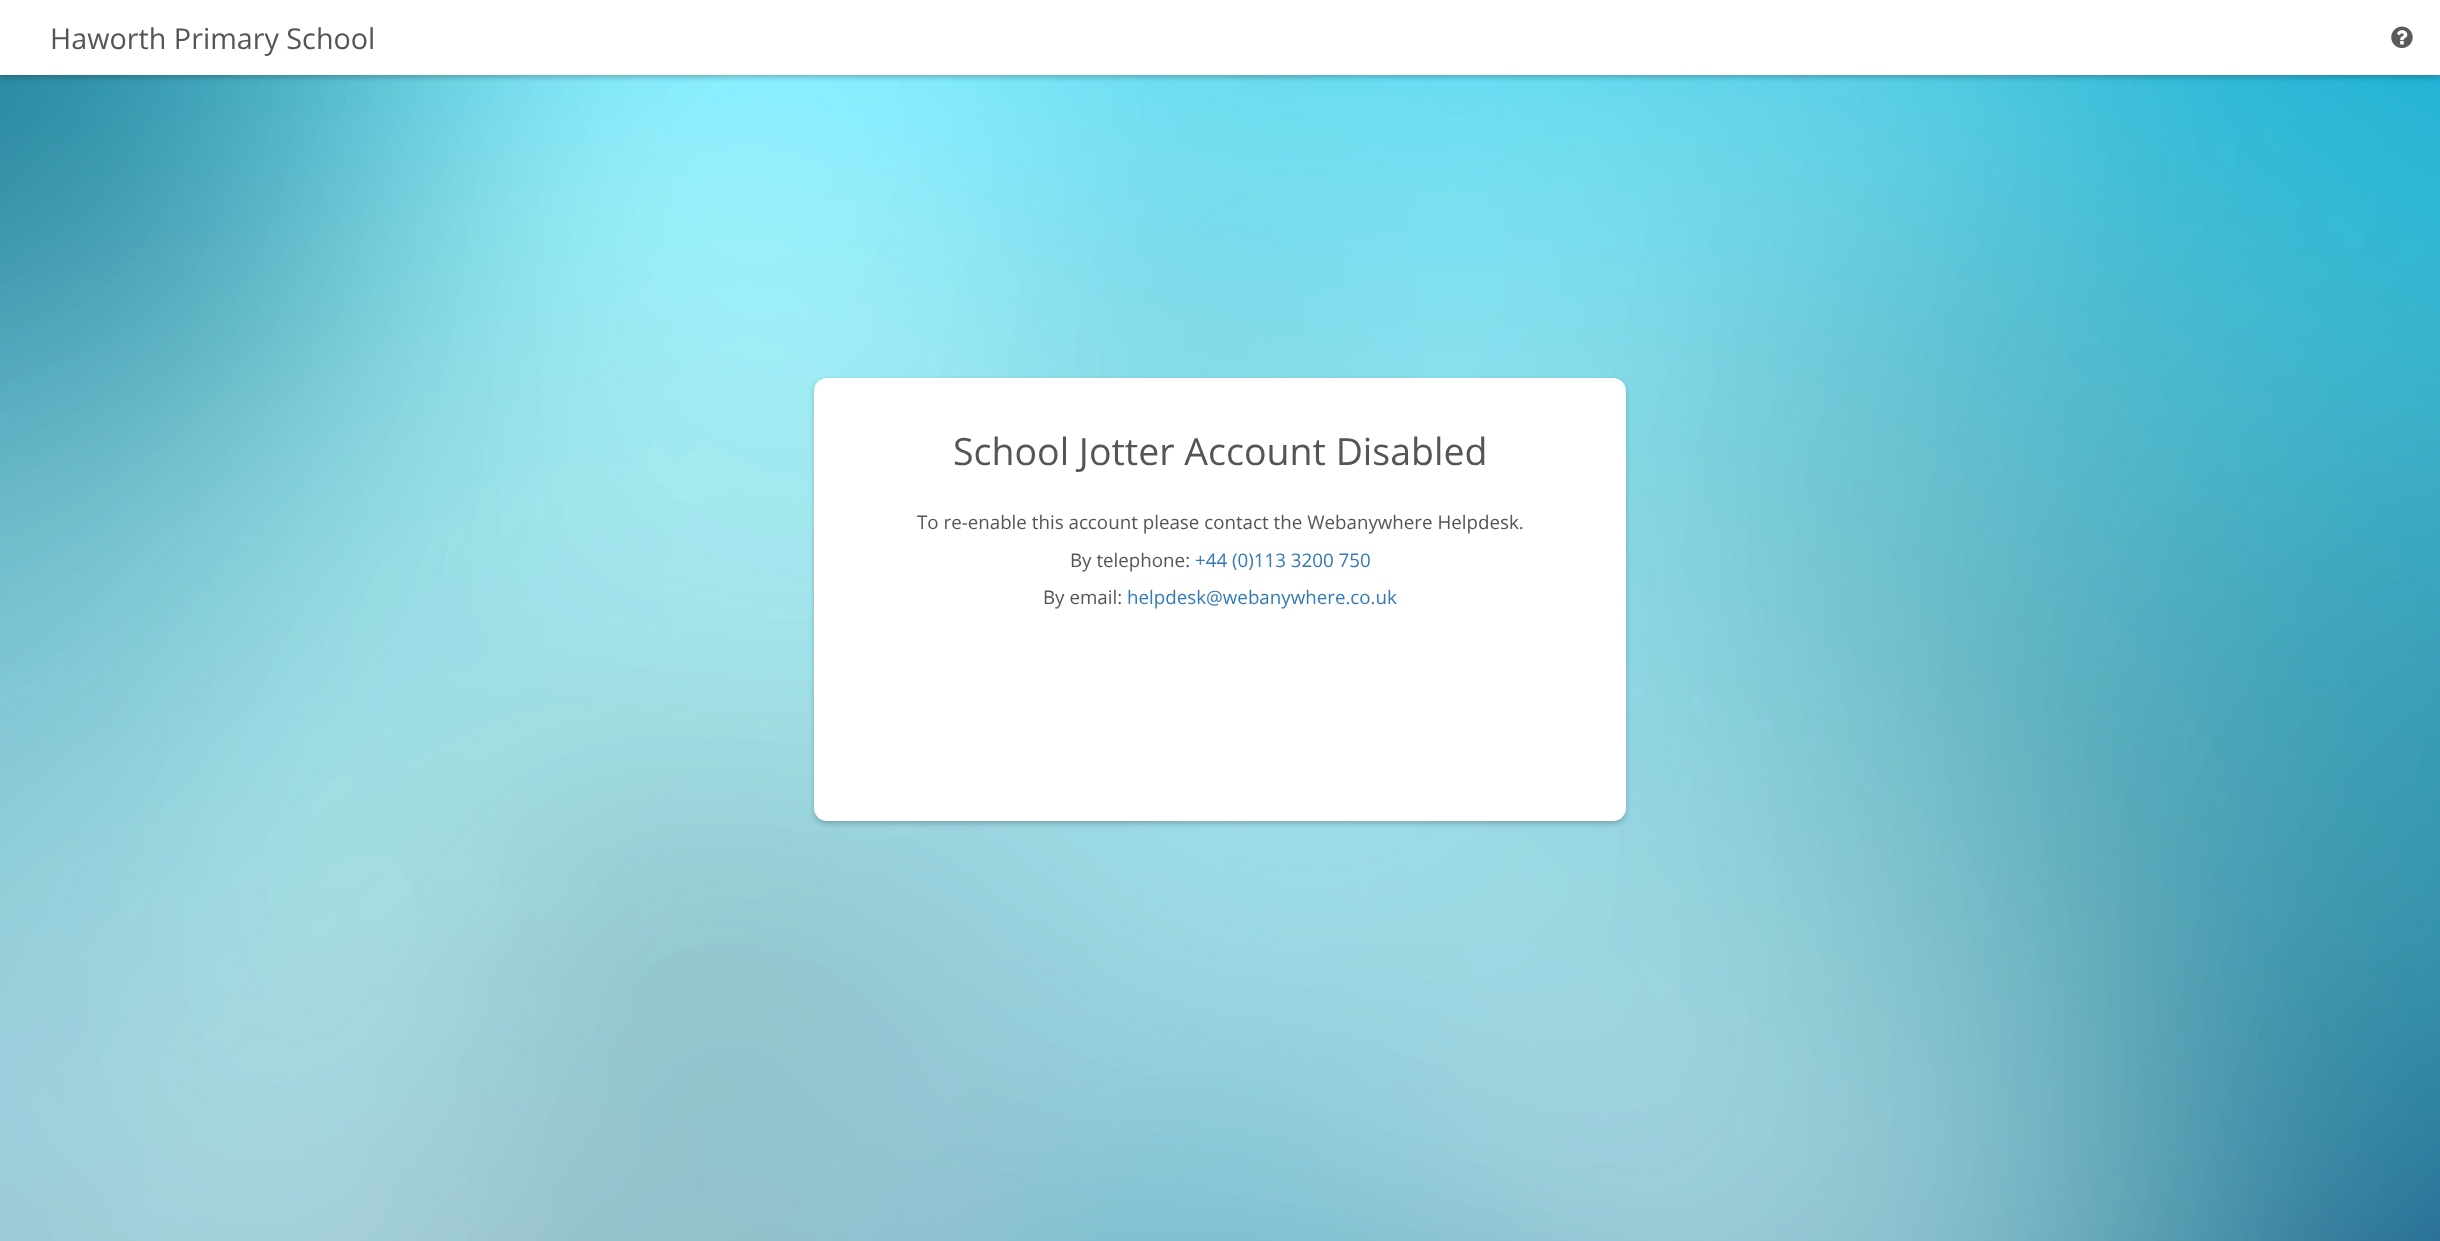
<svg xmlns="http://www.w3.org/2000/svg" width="2440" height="1241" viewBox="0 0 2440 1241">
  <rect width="100%" height="100%" fill="#fff"/>
  <image x="0" y="75" width="2440" height="1166" href="img/1.png"/>
  <path d="M0 3h2440v75H0z" fill="#00000033" filter="blur(2.5px)"/>
  <path d="M0 0h2440v75H0z" fill="#fff"/>
  <image x="2391" y="26" width="22" height="22" href="img/2.png"/>
  <rect x="814" y="380" width="812" height="444" rx="13" fill="#00000033" filter="blur(2.5px)"/>
  <rect x="814" y="378" width="812" height="443" rx="13" fill="#fff"/>
  <text x="50" y="49" font-family="Open Sans" font-size="28.75" fill="#555">Haworth Primary School</text>
  <text x="953" y="465" font-family="Open Sans" font-size="37.5" fill="#555">School Jotter Account Disabled</text>
  <g font-family="Open Sans" font-size="18.75" fill="#555">
    <text x="917" y="529">To re-enable this account please contact the Webanywhere Helpdesk.</text>
    <text x="1070" y="567">By telephone:</text>
  </g>
  <text x="1195" y="567" font-family="Open Sans" font-size="18.75" fill="#337ab7">+44 (0)113 3200 750</text>
  <text x="1043" y="604" font-family="Open Sans" font-size="18.75" fill="#555">By email:</text>
  <text x="1127" y="604" font-family="Open Sans" font-size="18.75" fill="#337ab7">helpdesk@webanywhere.co.uk</text>
</svg>
